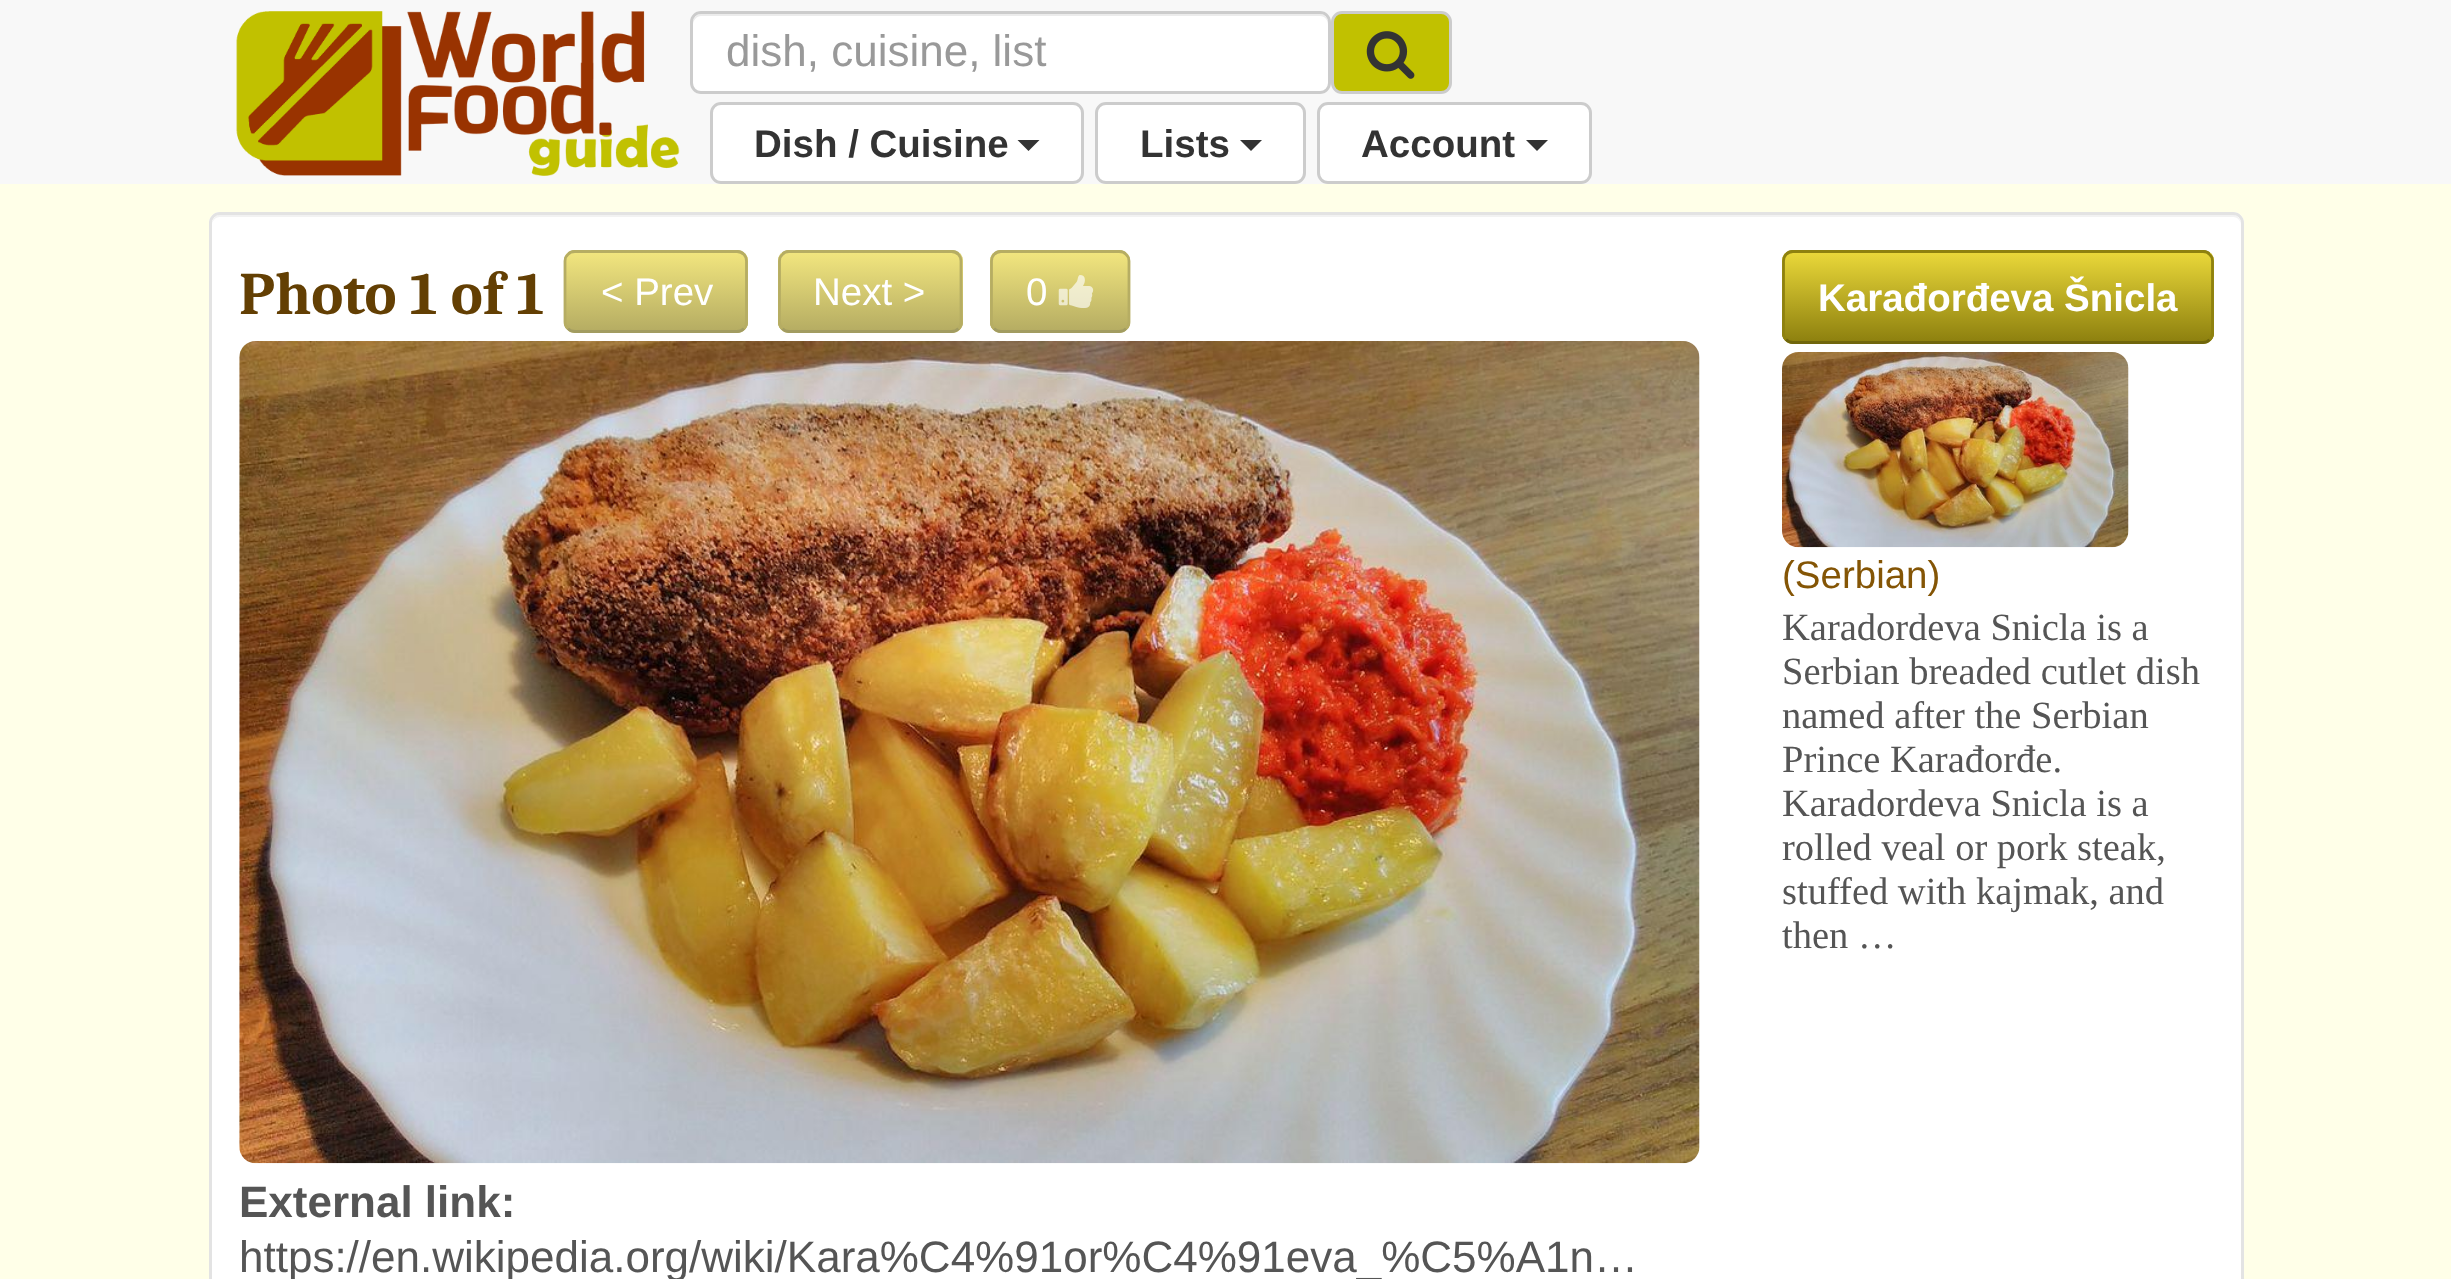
<svg xmlns="http://www.w3.org/2000/svg" width="2451" height="1279" viewBox="0 0 2451 1279">
  <defs>
    <clipPath id="clip1"><rect x="564" y="250" width="184" height="83" rx="11"/></clipPath>
    <linearGradient id="g1" gradientUnits="userSpaceOnUse" x1="656" y1="253" x2="656" y2="330"><stop offset="0" stop-color="#f1e57e"/><stop offset="1" stop-color="#b6ad63"/></linearGradient>
    <clipPath id="clip2"><rect x="778" y="250" width="185" height="83" rx="11"/></clipPath>
    <linearGradient id="g2" gradientUnits="userSpaceOnUse" x1="870" y1="253" x2="870" y2="330"><stop offset="0" stop-color="#f1e57e"/><stop offset="1" stop-color="#b6ad63"/></linearGradient>
    <clipPath id="clip3"><rect x="990" y="250" width="140" height="83" rx="11"/></clipPath>
    <linearGradient id="g3" gradientUnits="userSpaceOnUse" x1="1060" y1="253" x2="1060" y2="330"><stop offset="0" stop-color="#f1e57e"/><stop offset="1" stop-color="#b6ad63"/></linearGradient>
    <clipPath id="clip4"><rect x="1782" y="250" width="432" height="94" rx="11"/></clipPath>
    <linearGradient id="g4" gradientUnits="userSpaceOnUse" x1="1998" y1="253" x2="1998" y2="341"><stop offset="0" stop-color="#e9d739"/><stop offset="1" stop-color="#8e810f"/></linearGradient>
  </defs>
  <rect width="100%" height="100%" fill="#ffffe8"/>
  <path d="M0 0h2451v184H0z" fill="#f8f8f8"/>
  <image x="236" y="11" width="444" height="165" href="img/1.png"/>
  <rect x="690" y="11" width="641" height="83" rx="11" fill="#fff"/>
  <path d="M701 16H1320C1325 16 1328 20 1328 25V22C1328 18 1324 14 1320 14H701C697 14 693 18 693 22V25C693 20 697 16 701 16Z" fill="#ececec"/>
  <rect x="691.5" y="12.5" width="638" height="80" rx="9.5" fill="none" stroke="#ccc" stroke-width="3"/>
  <rect x="1332.5" y="12.5" width="118" height="80" rx="9.5" fill="#c1c100" stroke="#ccc" stroke-width="3"/>
  <image x="1366" y="31" width="49" height="48" href="img/2.png"/>
  <rect x="711.5" y="103.5" width="371" height="79" rx="9.5" fill="#fff" stroke="#ccc" stroke-width="3"/>
  <path d="M1017.5 140H1039.5L1028.5 151Z" fill="#333"/>
  <rect x="1096.5" y="103.5" width="208" height="79" rx="9.5" fill="#fff" stroke="#ccc" stroke-width="3"/>
  <path d="M1240 140H1262L1251 151Z" fill="#333"/>
  <rect x="1318.5" y="103.5" width="272" height="79" rx="9.5" fill="#fff" stroke="#ccc" stroke-width="3"/>
  <path d="M1526 140H1548L1537 151Z" fill="#333"/>
  <rect x="209" y="212" width="2035" height="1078" rx="11" fill="#fff"/>
  <path d="M220 217H2233C2238 217 2241 221 2241 226C2241 221 2239 215 2233 215H220C214 215 212 221 212 226C212 221 215 217 220 217Z" fill="#f2f2f2"/>
  <rect x="210.5" y="213.5" width="2032" height="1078" rx="9.5" fill="none" stroke="#e3e3e3" stroke-width="3"/>
  <rect x="564" y="250" width="184" height="83" rx="11" fill="#b6ae64"/>
  <g clip-path="url(#clip1)">
    <path d="M564 253h184v77H564z" fill="url(#g1)"/>
  </g>
  <path d="M744 328.5C742 330.5 739.5 331.5 737 331.5H575C572 331.5 569.5 330.5 568 328.5" fill="none" stroke="#a29c61" stroke-width="2.8"/>
  <path d="M568 328.5C566 327 565 324.5 565 322V261C565 258.5 566 256 568 254.5C569.5 252.5 572 251.5 575 251.5H737C739.5 251.5 742 252.5 744 254.5C745.5 256 746.5 258.5 746.5 261V322C746.5 324.5 745.5 327 744 328.5" fill="none" stroke="#b6ad63" stroke-width="2.8"/>
  <rect x="778" y="250" width="185" height="83" rx="11" fill="#b6ae64"/>
  <g clip-path="url(#clip2)">
    <path d="M778 253h185v77H778z" fill="url(#g2)"/>
  </g>
  <path d="M958.5 328.5C956.5 330.5 954 331.5 951.5 331.5H789C786.5 331.5 784 330.5 782.5 328.5" fill="none" stroke="#a29c61" stroke-width="2.8"/>
  <path d="M782.5 328.5C780.5 327 779.5 324.5 779.5 322V261C779.5 258.5 780.5 256 782.5 254.5C784 252.5 786.5 251.5 789 251.5H951.5C954 251.5 956.5 252.5 958.5 254.5C960 256 961 258.5 961 261V322C961 324.5 960 327 958.5 328.5" fill="none" stroke="#b6ad63" stroke-width="2.8"/>
  <rect x="990" y="250" width="140" height="83" rx="11" fill="#b6ae64"/>
  <g clip-path="url(#clip3)">
    <path d="M990 253h140v77H990z" fill="url(#g3)"/>
  </g>
  <path d="M1126 328.5C1124.5 330.5 1122 331.5 1119 331.5H1001C998.5 331.5 996 330.5 994 328.5" fill="none" stroke="#a29c61" stroke-width="2.8"/>
  <path d="M994 328.5C992.5 327 991.5 324.5 991.5 322V261C991.5 258.5 992.5 256 994 254.5C996 252.5 998.5 251.5 1001 251.5H1119C1122 251.5 1124.5 252.5 1126 254.5C1128 256 1129 258.5 1129 261V322C1129 324.5 1128 327 1126 328.5" fill="none" stroke="#b6ad63" stroke-width="2.8"/>
  <image x="1058" y="275" width="36" height="33" href="img/3.png"/>
  <image x="239" y="341" width="1461" height="823" href="img/4.png"/>
  <rect x="1782" y="250" width="432" height="94" rx="11" fill="#8e8210"/>
  <g clip-path="url(#clip4)">
    <path d="M1782 253h432v88H1782z" fill="url(#g4)"/>
  </g>
  <path d="M2209.5 339.5C2208 341.5 2205.5 342.5 2203 342.5H1793C1790.5 342.5 1788 341.5 1786 339.5" fill="none" stroke="#70660c" stroke-width="2.8"/>
  <path d="M1786 339.5C1784.5 338 1783.5 335.5 1783.5 333V261C1783.5 258.5 1784.5 256 1786 254.5C1788 252.5 1790.5 251.5 1793 251.5H2203C2205.5 251.5 2208 252.5 2209.5 254.5C2211.5 256 2212.5 258.5 2212.5 261V333C2212.5 335.5 2211.5 338 2209.5 339.5" fill="none" stroke="#8e810f" stroke-width="2.8"/>
  <image x="1782" y="352" width="347" height="196" href="img/5.png"/>
  <text x="726" y="66" font-family="Liberation Sans" font-size="44" fill="#999">dish, cuisine, list</text>
  <g font-family="Liberation Sans" font-size="38.5" font-weight="bold" fill="#333">
    <text x="754" y="157">Dish / Cuisine</text>
    <text x="1140" y="157">Lists</text>
    <text x="1361" y="157">Account</text>
  </g>
  <text x="239" y="314" font-family="Caladea" font-size="60.5" font-weight="bold" fill="#633f03">Photo 1 of 1</text>
  <g font-family="Liberation Sans" font-size="38.5" fill="#fff">
    <text x="601" y="305">&lt; Prev</text>
    <text x="813" y="305">Next &gt;</text>
    <text x="1026" y="305">0</text>
  </g>
  <text x="239" y="1217" font-family="Liberation Sans" font-size="44" font-weight="bold" fill="#555">External link:</text>
  <text x="239" y="1272" font-family="Liberation Sans" font-size="44" fill="#555">https://en.wikipedia.org/wiki/Kara%C4%91or%C4%91eva_%C5%A1n…</text>
  <text x="1818" y="311" font-family="Liberation Sans" font-size="38.5" font-weight="bold" fill="#fff">Karađorđeva Šnicla</text>
  <text x="1782" y="588" font-family="Liberation Sans" font-size="38.5" fill="#845505">(Serbian)</text>
  <g font-family="Liberation Serif" font-size="38.5" fill="#555">
    <text x="1782" y="640">Karadordeva Snicla is a</text>
    <text x="1782" y="684">Serbian breaded cutlet dish</text>
    <text x="1782" y="728">named after the Serbian</text>
    <text x="1782" y="772">Prince Karađorđe.</text>
    <text x="1782" y="816">Karadordeva Snicla is a</text>
    <text x="1782" y="860">rolled veal or pork steak,</text>
    <text x="1782" y="904">stuffed with kajmak, and</text>
    <text x="1782" y="948">then …</text>
  </g>
</svg>
